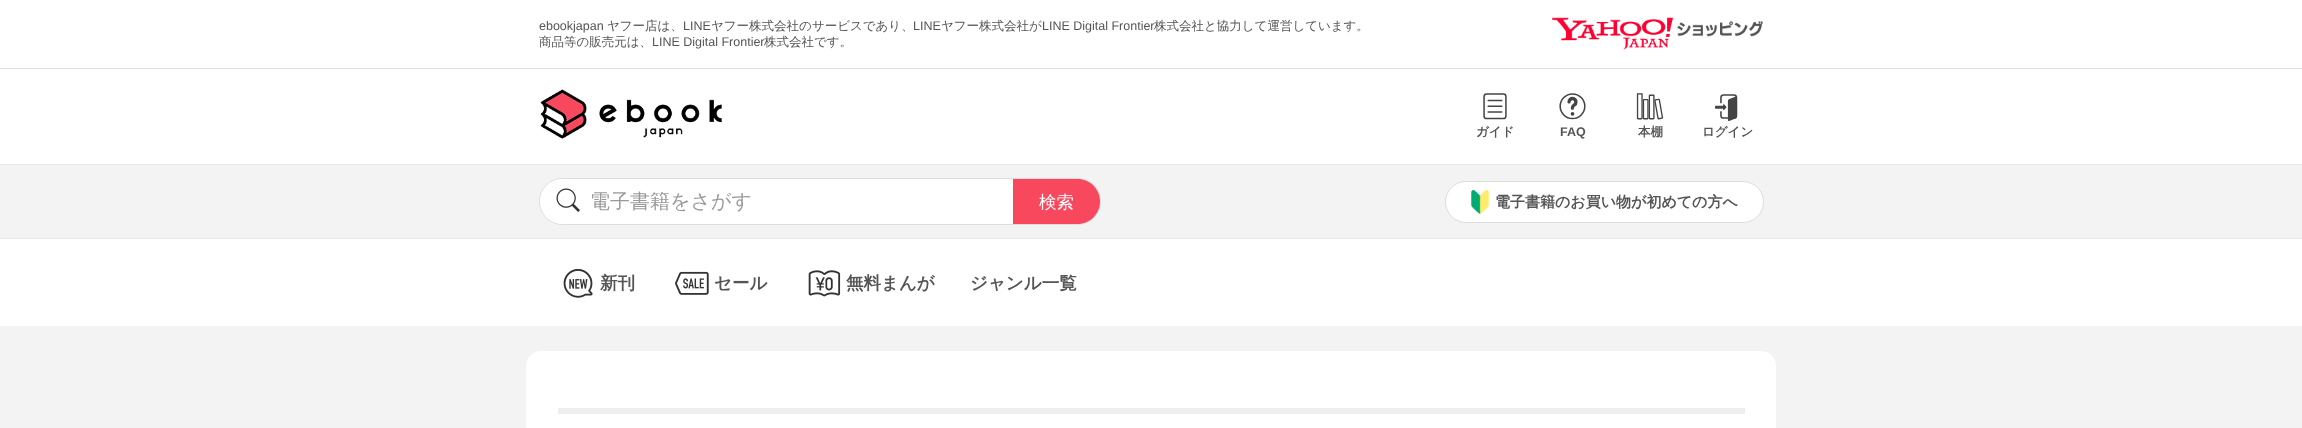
<svg xmlns="http://www.w3.org/2000/svg" width="2302" height="428" viewBox="0 0 2302 428">
  <rect width="100%" height="100%" fill="#fff"/>
  <image x="1552" y="17" width="211" height="33" href="img/1.png"/>
  <path d="M0 68h2302v1H0z" fill="#ddd"/>
  <image x="540" y="89" width="182" height="50" href="img/2.png"/>
  <image x="1483" y="93" width="24" height="27" href="img/3.png"/>
  <image x="1559" y="93" width="27" height="27" href="img/4.png"/>
  <image x="1636" y="93" width="28" height="27" href="img/5.png"/>
  <image x="1714" y="94" width="24" height="27" href="img/6.png"/>
  <path d="M0 165h2302v73H0z" fill="#f3f3f3"/>
  <path d="M0 164h2302v1H0z" fill="#e8e8e8"/>
  <path d="M0 238h2302v1H0z" fill="#e8e8e8"/>
  <rect x="539.5" y="178.5" width="561" height="46" rx="23" fill="none" stroke="#ddd"/>
  <path d="M562.5 179H1028V224H562.5C550 224 540 214 540 201.5C540 189 550 179 562.5 179Z" fill="#fff"/>
  <image x="556" y="188" width="24" height="24" href="img/7.png"/>
  <path d="M1013 179H1077.5C1090 179 1100 189 1100 201.5C1100 214 1090 224 1077.5 224H1013Z" fill="#f8485e"/>
  <rect x="1445.5" y="181.5" width="318" height="41" rx="20.5" fill="#fff" stroke="#ddd"/>
  <image x="1471" y="190" width="18" height="24" href="img/8.png"/>
  <image x="563" y="268" width="30" height="30" href="img/9.png"/>
  <image x="675" y="271" width="34" height="24" href="img/10.png"/>
  <image x="808" y="270" width="33" height="27" href="img/11.png"/>
  <path d="M0 326h2302v102H0z" fill="#f3f3f3"/>
  <rect x="526" y="351" width="1250" height="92" rx="15" fill="#fff"/>
  <path d="M558 408h1187v6H558z" fill="#eee"/>
  <text x="539" y="30" font-family="Liberation Sans" font-size="12.5" fill="#555">ebookjapan</text>
  <text x="607" y="30" font-family="WenQuanYi Zen Hei" font-size="12.5" font-weight="500" fill="#555">ヤフー店は、</text>
  <text x="683" y="30" font-family="Liberation Sans" font-size="12.5" fill="#555">LINE</text>
  <text x="711" y="30" font-family="WenQuanYi Zen Hei" font-size="12.5" font-weight="500" fill="#555">ヤフー株式会社のサービスであり、</text>
  <text x="913" y="30" font-family="Liberation Sans" font-size="12.5" fill="#555">LINE</text>
  <text x="941" y="30" font-family="WenQuanYi Zen Hei" font-size="12.5" font-weight="500" fill="#555">ヤフー株式会社が</text>
  <text x="1042" y="30" font-family="Liberation Sans" font-size="12.5" fill="#555">LINE Digital Frontier</text>
  <g font-family="WenQuanYi Zen Hei" font-size="12.5" font-weight="500" fill="#555">
    <text x="1154" y="30">株式会社と協力して運営しています。</text>
    <text x="539" y="46">商品等の販売元は、</text>
  </g>
  <text x="652" y="46" font-family="Liberation Sans" font-size="12.5" fill="#555">LINE Digital Frontier</text>
  <text x="764" y="46" font-family="WenQuanYi Zen Hei" font-size="12.5" font-weight="500" fill="#555">株式会社です。</text>
  <text x="1476" y="136" font-family="WenQuanYi Zen Hei" font-size="12.5" font-weight="bold" fill="#555">ガイド</text>
  <text x="1560" y="136" font-family="Liberation Sans" font-size="12.5" font-weight="bold" fill="#555">FAQ</text>
  <g font-family="WenQuanYi Zen Hei" font-size="12.5" font-weight="bold" fill="#555">
    <text x="1638" y="136">本棚</text>
    <text x="1702" y="136">ログイン</text>
  </g>
  <text x="590" y="208" font-family="WenQuanYi Zen Hei" font-size="20" font-weight="500" fill="#999">電子書籍をさがす</text>
  <text x="1039" y="208" font-family="WenQuanYi Zen Hei" font-size="17.5" font-weight="500" fill="#fff">検索</text>
  <text x="1495" y="207" font-family="WenQuanYi Zen Hei" font-size="15" font-weight="bold" fill="#555">電子書籍のお買い物が初めての方へ</text>
  <g font-family="WenQuanYi Zen Hei" font-size="17.5" font-weight="bold" fill="#555">
    <text x="600" y="289">新刊</text>
    <text x="714" y="289">セール</text>
    <text x="846" y="289">無料まんが</text>
    <text x="970" y="289">ジャンル一覧</text>
  </g>
</svg>
